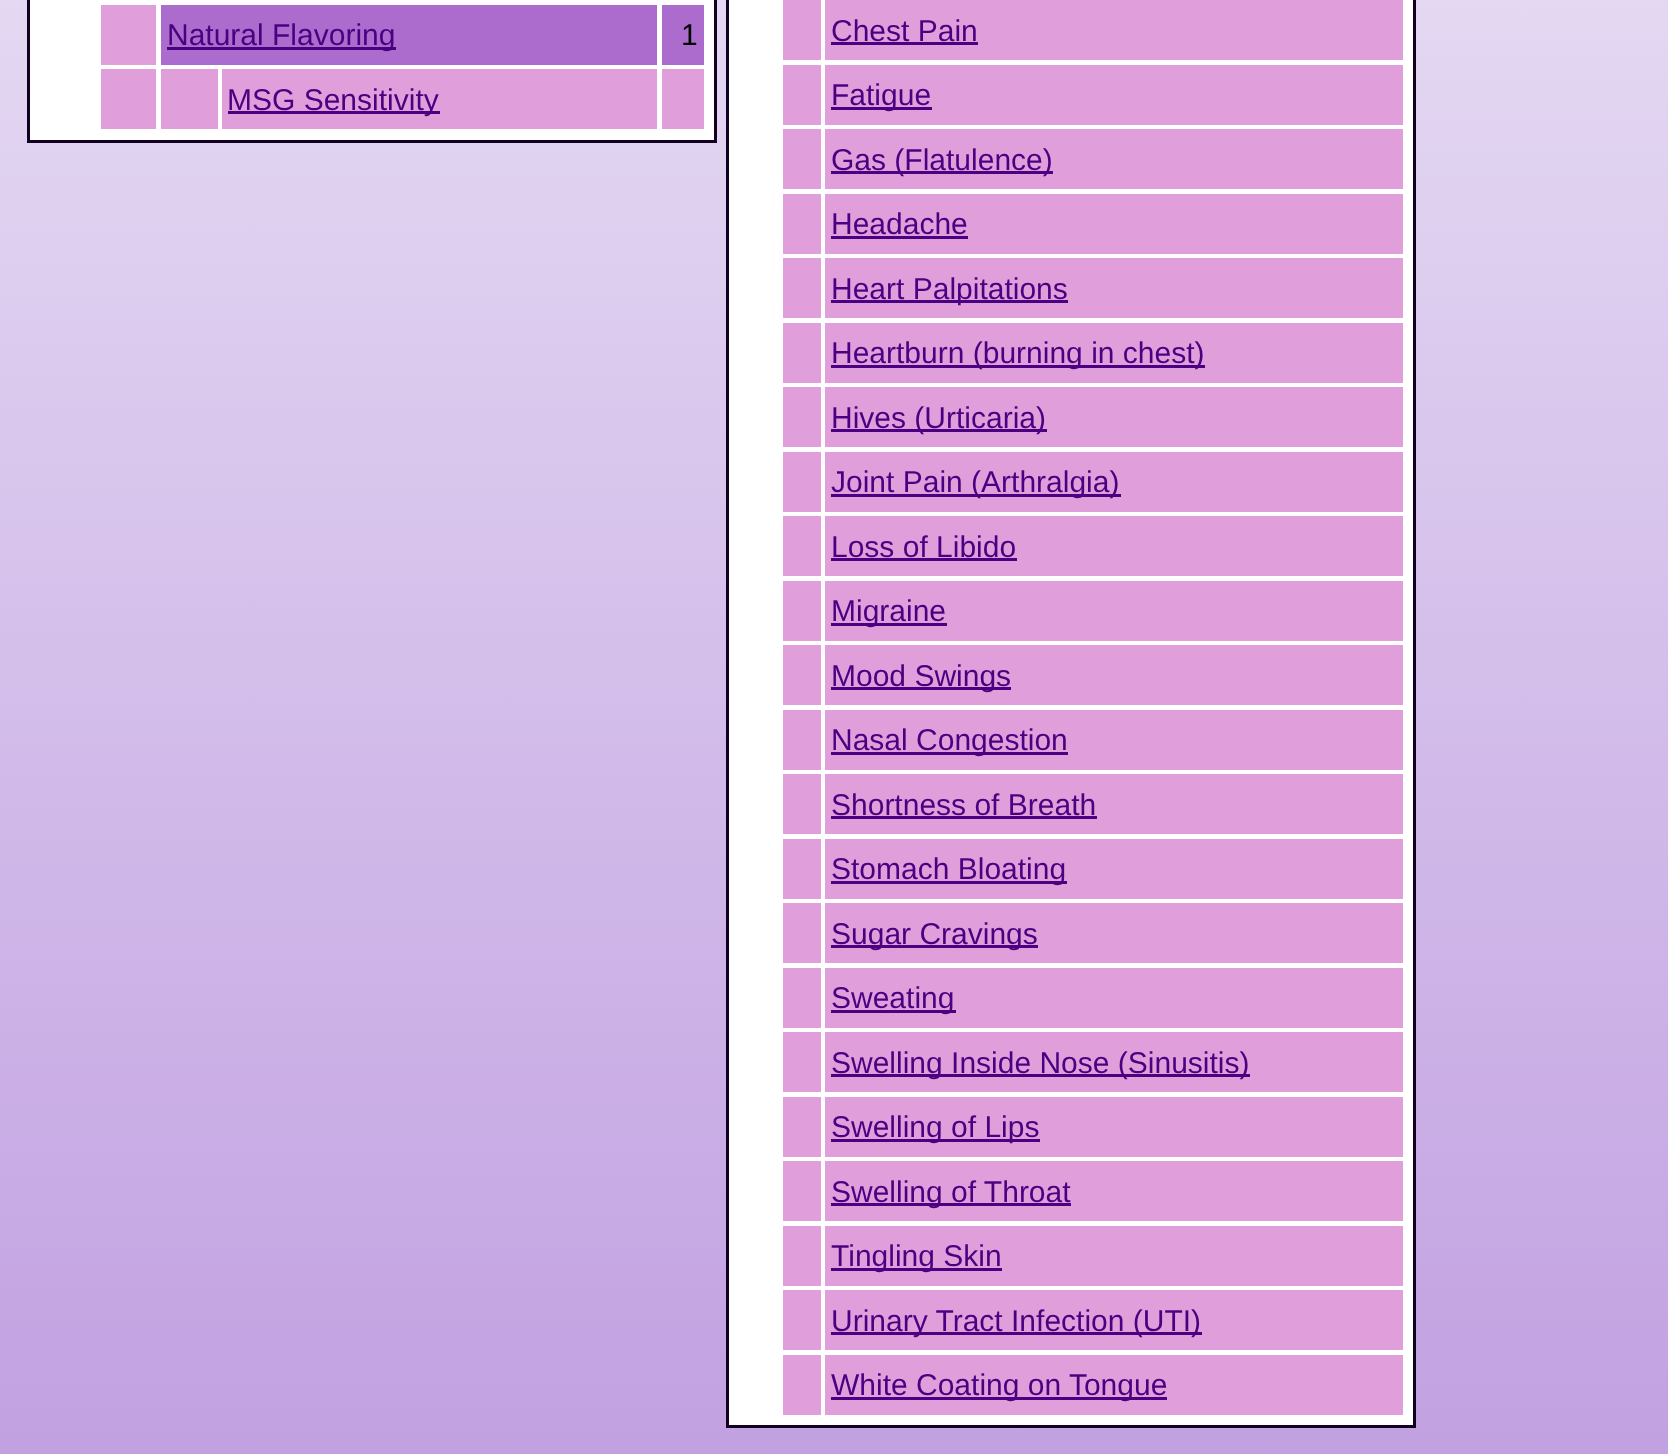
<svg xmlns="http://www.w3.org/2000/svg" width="1668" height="1454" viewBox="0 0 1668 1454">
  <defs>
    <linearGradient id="g1" gradientUnits="userSpaceOnUse" x1="834" y1="-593" x2="834" y2="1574"><stop offset="0" stop-color="#f1eef9"/><stop offset="1" stop-color="#bf9ce0"/></linearGradient>
  </defs>
  <rect width="100%" height="100%" fill="#fff"/>
  <path d="M0 0h1668v1454H0z" fill="url(#g1)"/>
  <path d="M28.5 -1.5h687v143H28.5z" fill="#fff" stroke="#100120" stroke-width="3"/>
  <path d="M101 5h55v60H101z" fill="#e09fdb"/>
  <path d="M161 5h496v60H161z" fill="#ac6ccd"/>
  <path d="M167 47h229v3H167z" fill="#4b0082"/>
  <path d="M662 5h42v60H662z" fill="#ac6ccd"/>
  <path d="M101 69h55v60H101z" fill="#e09fdb"/>
  <path d="M161 69h57v60H161z" fill="#e09fdb"/>
  <path d="M222 69h435v60H222z" fill="#e09fdb"/>
  <path d="M228 111h212v3H228z" fill="#4b0082"/>
  <path d="M662 69h42v60H662z" fill="#e09fdb"/>
  <path d="M727.5 -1.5h687v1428H727.5z" fill="#fff" stroke="#100120" stroke-width="3"/>
  <path d="M783 0h38v60H783z" fill="#e09fdb"/>
  <path d="M825 0h578v60H825z" fill="#e09fdb"/>
  <path d="M831 42h147v3H831z" fill="#4b0082"/>
  <path d="M783 65h38v60H783z" fill="#e09fdb"/>
  <path d="M825 65h578v60H825z" fill="#e09fdb"/>
  <path d="M831 107h101v3H831z" fill="#4b0082"/>
  <path d="M783 129h38v60H783z" fill="#e09fdb"/>
  <path d="M825 129h578v60H825z" fill="#e09fdb"/>
  <path d="M831 171h222v3H831z" fill="#4b0082"/>
  <path d="M783 194h38v60H783z" fill="#e09fdb"/>
  <path d="M825 194h578v60H825z" fill="#e09fdb"/>
  <path d="M831 236h137v3H831z" fill="#4b0082"/>
  <path d="M783 258h38v60H783z" fill="#e09fdb"/>
  <path d="M825 258h578v60H825z" fill="#e09fdb"/>
  <path d="M831 300h237v3H831z" fill="#4b0082"/>
  <path d="M783 323h38v60H783z" fill="#e09fdb"/>
  <path d="M825 323h578v60H825z" fill="#e09fdb"/>
  <path d="M831 365h374v3H831z" fill="#4b0082"/>
  <path d="M783 387h38v60H783z" fill="#e09fdb"/>
  <path d="M825 387h578v60H825z" fill="#e09fdb"/>
  <path d="M831 429h216v3H831z" fill="#4b0082"/>
  <path d="M783 452h38v60H783z" fill="#e09fdb"/>
  <path d="M825 452h578v60H825z" fill="#e09fdb"/>
  <path d="M831 494h290v3H831z" fill="#4b0082"/>
  <path d="M783 516h38v60H783z" fill="#e09fdb"/>
  <path d="M825 516h578v60H825z" fill="#e09fdb"/>
  <path d="M831 558h186v3H831z" fill="#4b0082"/>
  <path d="M783 581h38v60H783z" fill="#e09fdb"/>
  <path d="M825 581h578v60H825z" fill="#e09fdb"/>
  <path d="M831 623h116v3H831z" fill="#4b0082"/>
  <path d="M783 645h38v60H783z" fill="#e09fdb"/>
  <path d="M825 645h578v60H825z" fill="#e09fdb"/>
  <path d="M831 687h180v3H831z" fill="#4b0082"/>
  <path d="M783 710h38v60H783z" fill="#e09fdb"/>
  <path d="M825 710h578v60H825z" fill="#e09fdb"/>
  <path d="M831 752h237v3H831z" fill="#4b0082"/>
  <path d="M783 774h38v60H783z" fill="#e09fdb"/>
  <path d="M825 774h578v60H825z" fill="#e09fdb"/>
  <path d="M831 816h266v3H831z" fill="#4b0082"/>
  <path d="M783 839h38v60H783z" fill="#e09fdb"/>
  <path d="M825 839h578v60H825z" fill="#e09fdb"/>
  <path d="M831 881h236v3H831z" fill="#4b0082"/>
  <path d="M783 903h38v60H783z" fill="#e09fdb"/>
  <path d="M825 903h578v60H825z" fill="#e09fdb"/>
  <path d="M831 945h207v3H831z" fill="#4b0082"/>
  <path d="M783 968h38v60H783z" fill="#e09fdb"/>
  <path d="M825 968h578v60H825z" fill="#e09fdb"/>
  <path d="M831 1010h125v3H831z" fill="#4b0082"/>
  <path d="M783 1032h38v60H783z" fill="#e09fdb"/>
  <path d="M825 1032h578v60H825z" fill="#e09fdb"/>
  <path d="M831 1074h419v3H831z" fill="#4b0082"/>
  <path d="M783 1097h38v60H783z" fill="#e09fdb"/>
  <path d="M825 1097h578v60H825z" fill="#e09fdb"/>
  <path d="M831 1139h209v3H831z" fill="#4b0082"/>
  <path d="M783 1161h38v60H783z" fill="#e09fdb"/>
  <path d="M825 1161h578v60H825z" fill="#e09fdb"/>
  <path d="M831 1203h240v3H831z" fill="#4b0082"/>
  <path d="M783 1226h38v60H783z" fill="#e09fdb"/>
  <path d="M825 1226h578v60H825z" fill="#e09fdb"/>
  <path d="M831 1268h171v3H831z" fill="#4b0082"/>
  <path d="M783 1290h38v60H783z" fill="#e09fdb"/>
  <path d="M825 1290h578v60H825z" fill="#e09fdb"/>
  <path d="M831 1332h371v3H831z" fill="#4b0082"/>
  <path d="M783 1355h38v60H783z" fill="#e09fdb"/>
  <path d="M825 1355h578v60H825z" fill="#e09fdb"/>
  <path d="M831 1397h336v3H831z" fill="#4b0082"/>
  <text x="167" y="45" font-family="Liberation Sans" font-size="30" fill="#4b0082">Natural Flavoring</text>
  <text x="681" y="45" font-family="Liberation Sans" font-size="30" fill="#000">1</text>
  <g font-family="Liberation Sans" font-size="30" fill="#4b0082">
    <text x="227" y="110">MSG Sensitivity</text>
    <text x="831" y="41">Chest Pain</text>
    <text x="831" y="105">Fatigue</text>
    <text x="831" y="170">Gas (Flatulence)</text>
    <text x="831" y="234">Headache</text>
    <text x="831" y="299">Heart Palpitations</text>
    <text x="831" y="363">Heartburn (burning in chest)</text>
    <text x="831" y="428">Hives (Urticaria)</text>
    <text x="831" y="492">Joint Pain (Arthralgia)</text>
    <text x="831" y="557">Loss of Libido</text>
    <text x="831" y="621">Migraine</text>
    <text x="831" y="686">Mood Swings</text>
    <text x="831" y="750">Nasal Congestion</text>
    <text x="831" y="815">Shortness of Breath</text>
    <text x="831" y="879">Stomach Bloating</text>
    <text x="831" y="944">Sugar Cravings</text>
    <text x="831" y="1008">Sweating</text>
    <text x="831" y="1073">Swelling Inside Nose (Sinusitis)</text>
    <text x="831" y="1137">Swelling of Lips</text>
    <text x="831" y="1202">Swelling of Throat</text>
    <text x="831" y="1266">Tingling Skin</text>
    <text x="831" y="1331">Urinary Tract Infection (UTI)</text>
    <text x="831" y="1395">White Coating on Tongue</text>
  </g>
</svg>
